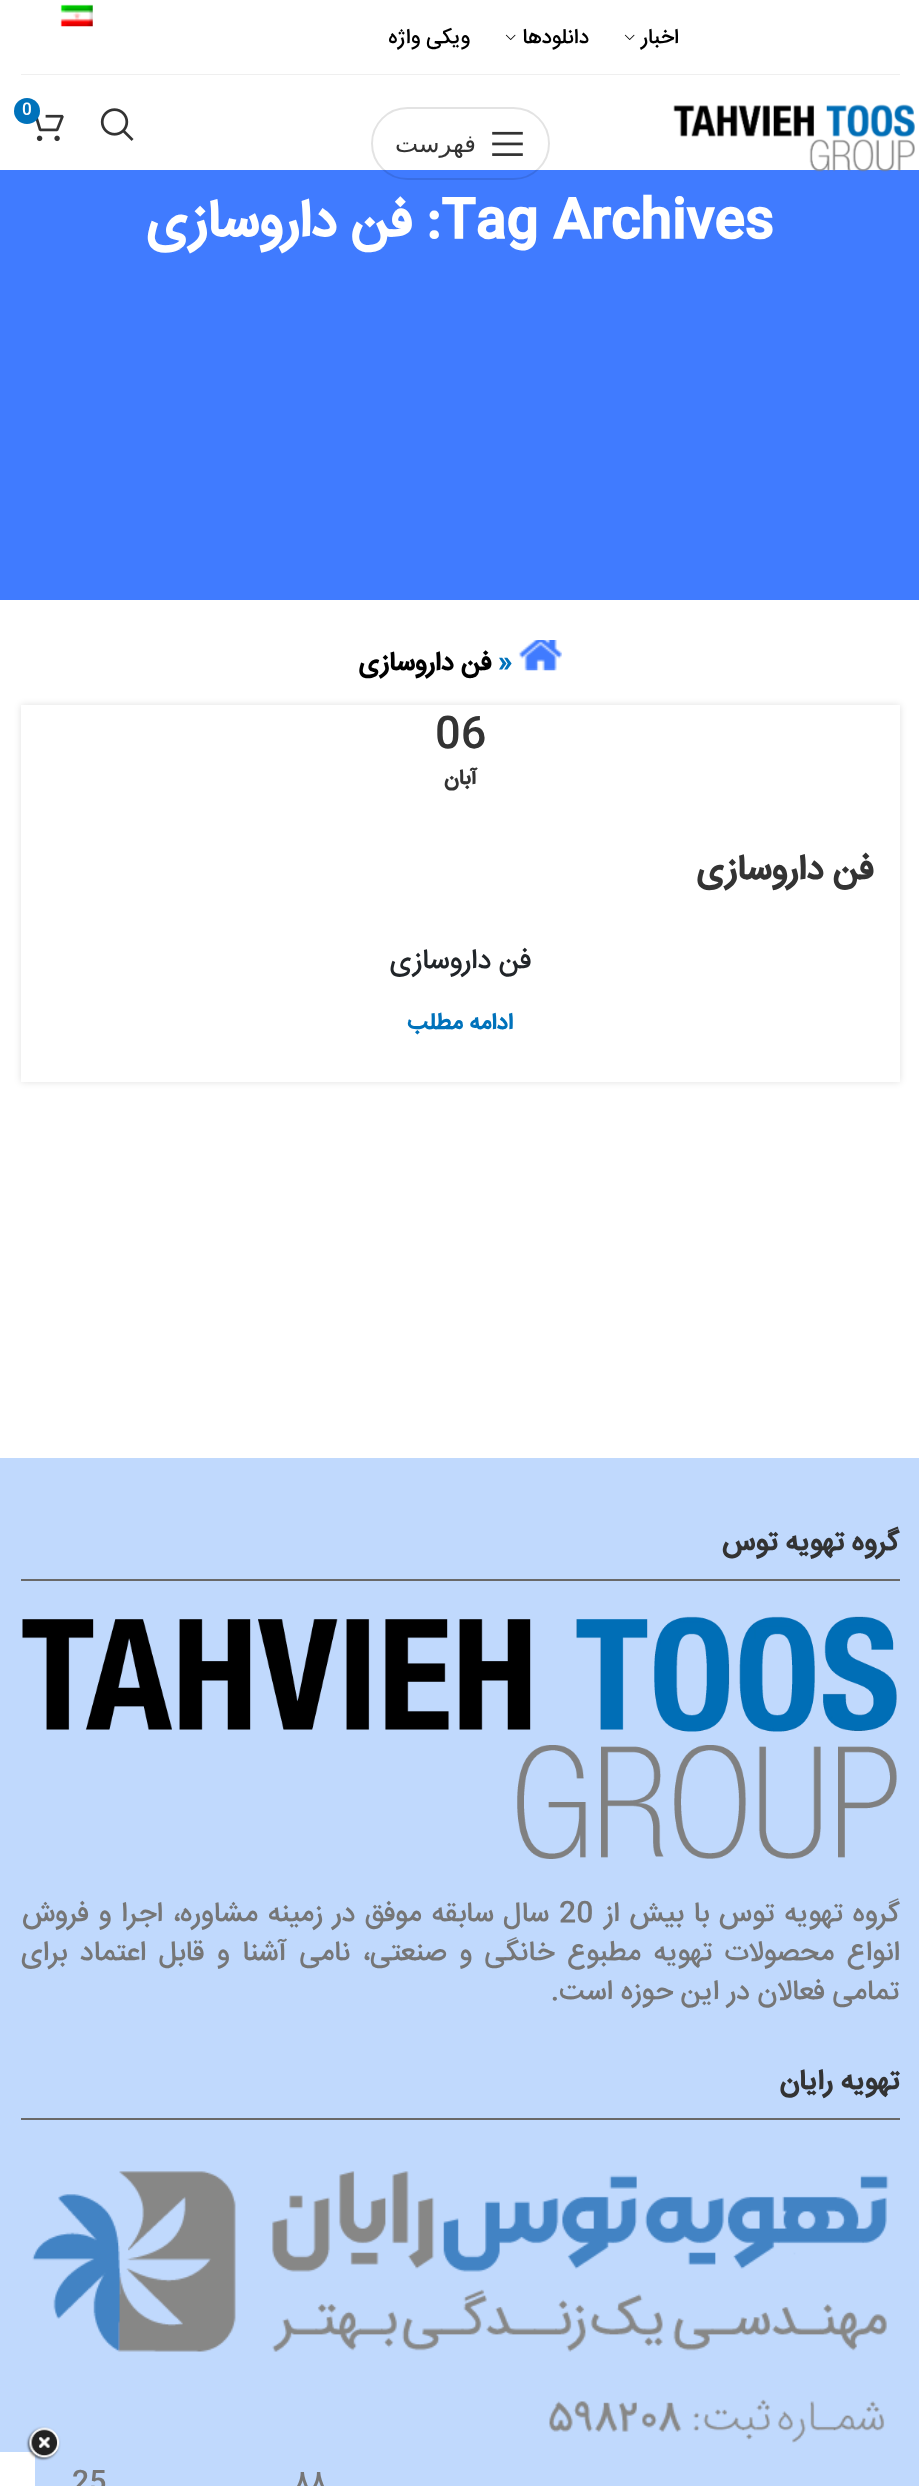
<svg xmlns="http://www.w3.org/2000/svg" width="919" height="2486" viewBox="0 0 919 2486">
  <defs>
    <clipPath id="clip1"><path d="M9 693H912V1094H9ZM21 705H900V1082H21Z" clip-rule="evenodd"/></clipPath>
  </defs>
  <rect width="100%" height="100%" fill="#fff"/>
  <path d="M21 74h879v1H21z" fill="#efefef"/>
  <image x="60" y="4" width="33" height="23" href="img/1.png"/>
  <image x="624" y="34" width="11" height="6" href="img/2.png"/>
  <image x="505" y="34" width="11" height="6" href="img/2.png"/>
  <path d="M0 170h919v430H0z" fill="#407bff"/>
  <image x="673" y="104" width="242" height="68" href="img/3.png"/>
  <rect x="372" y="108" width="177" height="71" rx="35.5" fill="none" stroke="#0000001c" stroke-width="2"/>
  <image x="492" y="131" width="31" height="25" href="img/4.png"/>
  <image x="100" y="108" width="34" height="33" href="img/5.png"/>
  <image x="35" y="114" width="29" height="28" href="img/6.png"/>
  <circle cx="27" cy="111" r="13" fill="#0072bb"/>
  <image x="518" y="640" width="44" height="31" href="img/7.png"/>
  <g clip-path="url(#clip1)">
    <path d="M21 705h879v377H21z" fill="#0000001f" filter="blur(3.5px)"/>
  </g>
  <path d="M21 803h879v279H21z" fill="#fff"/>
  <path d="M0 1458h919v1028H0z" fill="#c0d9fd"/>
  <path d="M21 1579h879v2H21z" fill="#696969"/>
  <image x="22" y="1616" width="875" height="243" href="img/8.png"/>
  <path d="M21 2118h879v2H21z" fill="#696969"/>
  <image x="32" y="2171" width="857" height="272" href="img/9.png"/>
  <path d="M0 2452h35v34H0z" fill="#fff"/>
  <image x="26" y="2426" width="35" height="35" href="img/10.png"/>
  <g font-family="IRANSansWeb" font-size="21" font-weight="500" direction="rtl" fill="#000">
    <text x="679" y="43">اخبار</text>
    <text x="589" y="43">دانلودها</text>
    <text x="470" y="43">ویکی واژه</text>
  </g>
  <text x="476" y="152" font-family="DejaVu Sans" font-size="24.5" direction="rtl" fill="#333">فهرست</text>
  <text x="22" y="114" font-family="IRANSansWeb" font-size="16" font-weight="500" fill="#fff">0</text>
  <text x="441" y="236" font-family="IRANSansWeb" font-size="52.5" font-weight="bold" fill="#fff">Tag Archives</text>
  <text x="441" y="236" font-family="IRANSansWeb" font-size="52.5" font-weight="bold" direction="rtl" fill="#fff">: فن داروسازی</text>
  <text x="498" y="670" font-family="IRANSansWeb" font-size="26.25" font-weight="bold" fill="#0072bb">»</text>
  <text x="491" y="670" font-family="IRANSansWeb" font-size="26.25" font-weight="bold" direction="rtl" fill="#000">فن داروسازی</text>
  <text x="435" y="746" font-family="IRANSansWeb" font-size="42" font-weight="500" fill="#333">06</text>
  <text x="477" y="784" font-family="IRANSansWeb" font-size="21" font-weight="bold" direction="rtl" fill="#333">آبان</text>
  <text x="873" y="879" font-family="IRANSansWeb" font-size="35" font-weight="bold" direction="rtl" fill="#333">فن داروسازی</text>
  <text x="531" y="968" font-family="IRANSansWeb" font-size="28" font-weight="500" direction="rtl" fill="#212529">فن داروسازی</text>
  <text x="513" y="1029" font-family="IRANSansWeb" font-size="22.75" font-weight="bold" direction="rtl" fill="#0072bb">ادامه مطلب</text>
  <text x="899" y="1550" font-family="IRANSansWeb" font-size="28" font-weight="bold" direction="rtl" fill="#333">گروه تهویه توس</text>
  <text x="900" y="1921" word-spacing="2" font-family="IRANSansWeb" font-size="28" font-weight="500" direction="rtl" fill="#767676">گروه تهویه توس با بیش از</text>
  <text x="559" y="1921" font-family="IRANSansWeb" font-size="28" font-weight="500" fill="#767676">20</text>
  <g font-family="IRANSansWeb" font-size="28" font-weight="500" direction="rtl" fill="#767676">
    <text x="549" y="1921" word-spacing="2">سال سابقه موفق در زمینه مشاوره، اجرا و فروش</text>
    <text x="900" y="1960" word-spacing="4.75">انواع محصولات تهویه مطبوع خانگی و صنعتی، نامی آشنا و قابل اعتماد برای</text>
    <text x="899" y="1999">تمامی فعالان در این حوزه است.</text>
  </g>
  <text x="899" y="2089" font-family="IRANSansWeb" font-size="28" font-weight="bold" direction="rtl" fill="#333">تهویه رایان</text>
  <g font-family="IRANSansWeb" font-size="28" font-weight="500" fill="#767676">
    <text x="294" y="2490">۸۸</text>
    <text x="72" y="2490">25</text>
  </g>
</svg>
